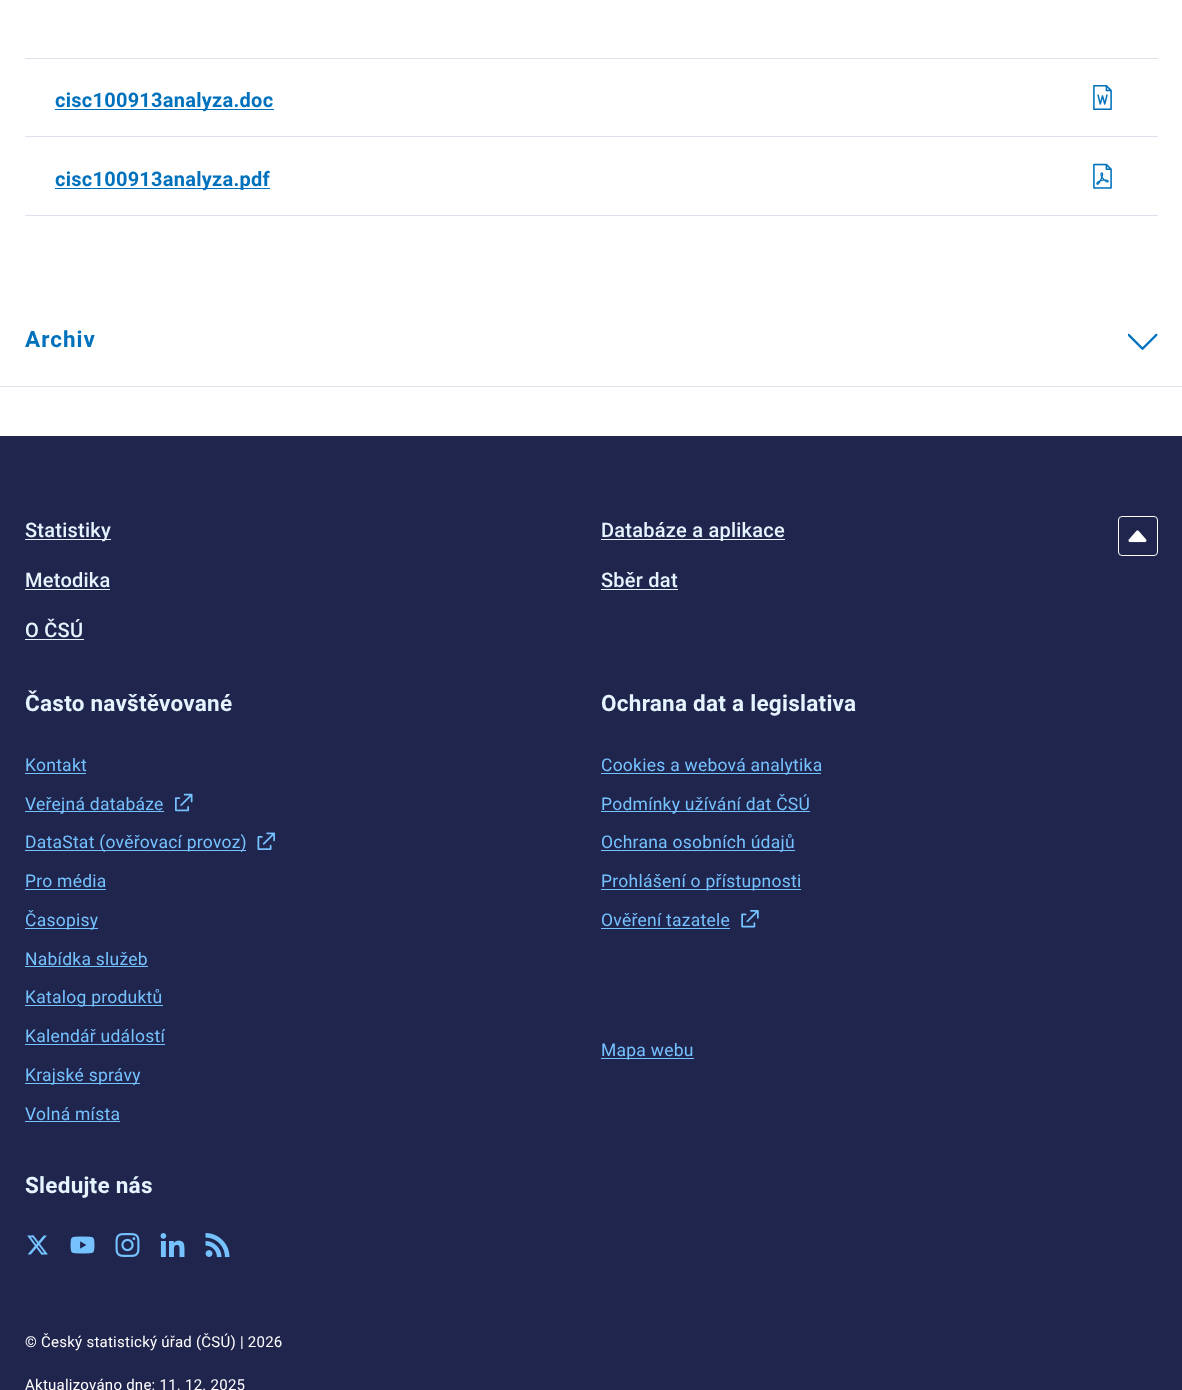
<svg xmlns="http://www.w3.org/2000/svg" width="1182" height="1390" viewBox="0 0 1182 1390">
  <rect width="100%" height="100%" fill="#fff"/>
  <path d="M25 58h1133v1H25z" fill="#dde1ec"/>
  <path d="M25 136h1133v1H25z" fill="#dde1ec"/>
  <path d="M55 109h219v1H55z" fill="#0071bc"/>
  <image x="1093" y="85" width="19" height="25" href="img/1.png"/>
  <path d="M25 215h1133v1H25z" fill="#dde1ec"/>
  <path d="M55 188h215v1H55z" fill="#0071bc"/>
  <image x="1093" y="163" width="19" height="26" href="img/2.png"/>
  <image x="1128" y="333" width="30" height="17" href="img/3.png"/>
  <path d="M0 386h1182v1H0z" fill="#dde1ec"/>
  <path d="M0 436h1182v954H0z" fill="#20254d"/>
  <path d="M25 539h86v1H25z" fill="#e4f5ff"/>
  <path d="M601 539h184v1H601z" fill="#e4f5ff"/>
  <path d="M25 589h85v1H25z" fill="#e4f5ff"/>
  <path d="M601 589h77v1H601z" fill="#e4f5ff"/>
  <path d="M25 639h59v1H25z" fill="#e4f5ff"/>
  <path d="M25 773h61v1H25z" fill="#75c2ff"/>
  <path d="M25 811h139v1H25z" fill="#75c2ff"/>
  <image x="175" y="793" width="18" height="19" href="img/4.png"/>
  <path d="M25 850h221v1H25z" fill="#75c2ff"/>
  <image x="257" y="832" width="18" height="18" href="img/5.png"/>
  <path d="M25 889h81v1H25z" fill="#75c2ff"/>
  <path d="M25 928h73v1H25z" fill="#75c2ff"/>
  <path d="M25 966h123v1H25z" fill="#75c2ff"/>
  <path d="M25 1005h138v1H25z" fill="#75c2ff"/>
  <path d="M25 1044h140v1H25z" fill="#75c2ff"/>
  <path d="M25 1083h115v1H25z" fill="#75c2ff"/>
  <path d="M25 1121h95v1H25z" fill="#75c2ff"/>
  <path d="M601 773h220v1H601z" fill="#75c2ff"/>
  <path d="M601 811h209v1H601z" fill="#75c2ff"/>
  <path d="M601 850h194v1H601z" fill="#75c2ff"/>
  <path d="M601 889h200v1H601z" fill="#75c2ff"/>
  <path d="M601 928h129v1H601z" fill="#75c2ff"/>
  <image x="741" y="910" width="18" height="18" href="img/6.png"/>
  <path d="M601 1058h93v1H601z" fill="#75c2ff"/>
  <image x="27" y="1235" width="21" height="20" href="img/7.png"/>
  <image x="70" y="1236" width="25" height="18" href="img/8.png"/>
  <image x="115" y="1233" width="25" height="24" href="img/9.png"/>
  <image x="160" y="1233" width="25" height="24" href="img/10.png"/>
  <image x="205" y="1233" width="25" height="24" href="img/11.png"/>
  <rect x="1118.5" y="516.5" width="39" height="39" rx="3.5" fill="none" stroke="#fff"/>
  <image x="1128" y="530" width="19" height="13" href="img/12.png"/>
  <g font-family="Roboto" font-size="20" font-weight="bold" letter-spacing="0.25" fill="#0071bc">
    <text x="55" y="107">cisc100913analyza.doc</text>
    <text x="55" y="186">cisc100913analyza.pdf</text>
  </g>
  <text x="25" y="347" font-family="Roboto" font-size="22.5" font-weight="bold" letter-spacing="1" fill="#0071bc">Archiv</text>
  <g font-family="Roboto" font-size="20" font-weight="500" letter-spacing="0.25" fill="#e4f5ff">
    <text x="25" y="537">Statistiky</text>
    <text x="601" y="537">Databáze a aplikace</text>
    <text x="25" y="587">Metodika</text>
    <text x="601" y="587">Sběr dat</text>
    <text x="25" y="637">O ČSÚ</text>
  </g>
  <text x="25" y="711" font-family="Roboto" font-size="22.5" font-weight="bold" letter-spacing="0.25" fill="#e4f5ff">Často navštěvované</text>
  <g font-family="Roboto" font-size="17.5" letter-spacing="0.25" fill="#75c2ff">
    <text x="25" y="771">Kontakt</text>
    <text x="25" y="810">Veřejná databáze</text>
    <text x="25" y="848">DataStat (ověřovací provoz)</text>
    <text x="25" y="887">Pro média</text>
    <text x="25" y="926">Časopisy</text>
    <text x="25" y="965">Nabídka služeb</text>
    <text x="25" y="1003">Katalog produktů</text>
    <text x="25" y="1042">Kalendář událostí</text>
    <text x="25" y="1081">Krajské správy</text>
    <text x="25" y="1120">Volná místa</text>
  </g>
  <text x="601" y="711" font-family="Roboto" font-size="22.5" font-weight="bold" letter-spacing="0.25" fill="#e4f5ff">Ochrana dat a legislativa</text>
  <g font-family="Roboto" font-size="17.5" letter-spacing="0.25" fill="#75c2ff">
    <text x="601" y="771">Cookies a webová analytika</text>
    <text x="601" y="810">Podmínky užívání dat ČSÚ</text>
    <text x="601" y="848">Ochrana osobních údajů</text>
    <text x="601" y="887">Prohlášení o přístupnosti</text>
    <text x="601" y="926">Ověření tazatele</text>
    <text x="601" y="1056">Mapa webu</text>
  </g>
  <text x="25" y="1193" font-family="Roboto" font-size="22.5" font-weight="bold" letter-spacing="0.25" fill="#e4f5ff">Sledujte nás</text>
  <g font-family="Roboto" font-size="15" letter-spacing="0.25" fill="#fff">
    <text x="25" y="1347">© Český statistický úřad (ČSÚ) | 2026</text>
    <text x="25" y="1390">Aktualizováno dne: 11. 12. 2025</text>
  </g>
</svg>
